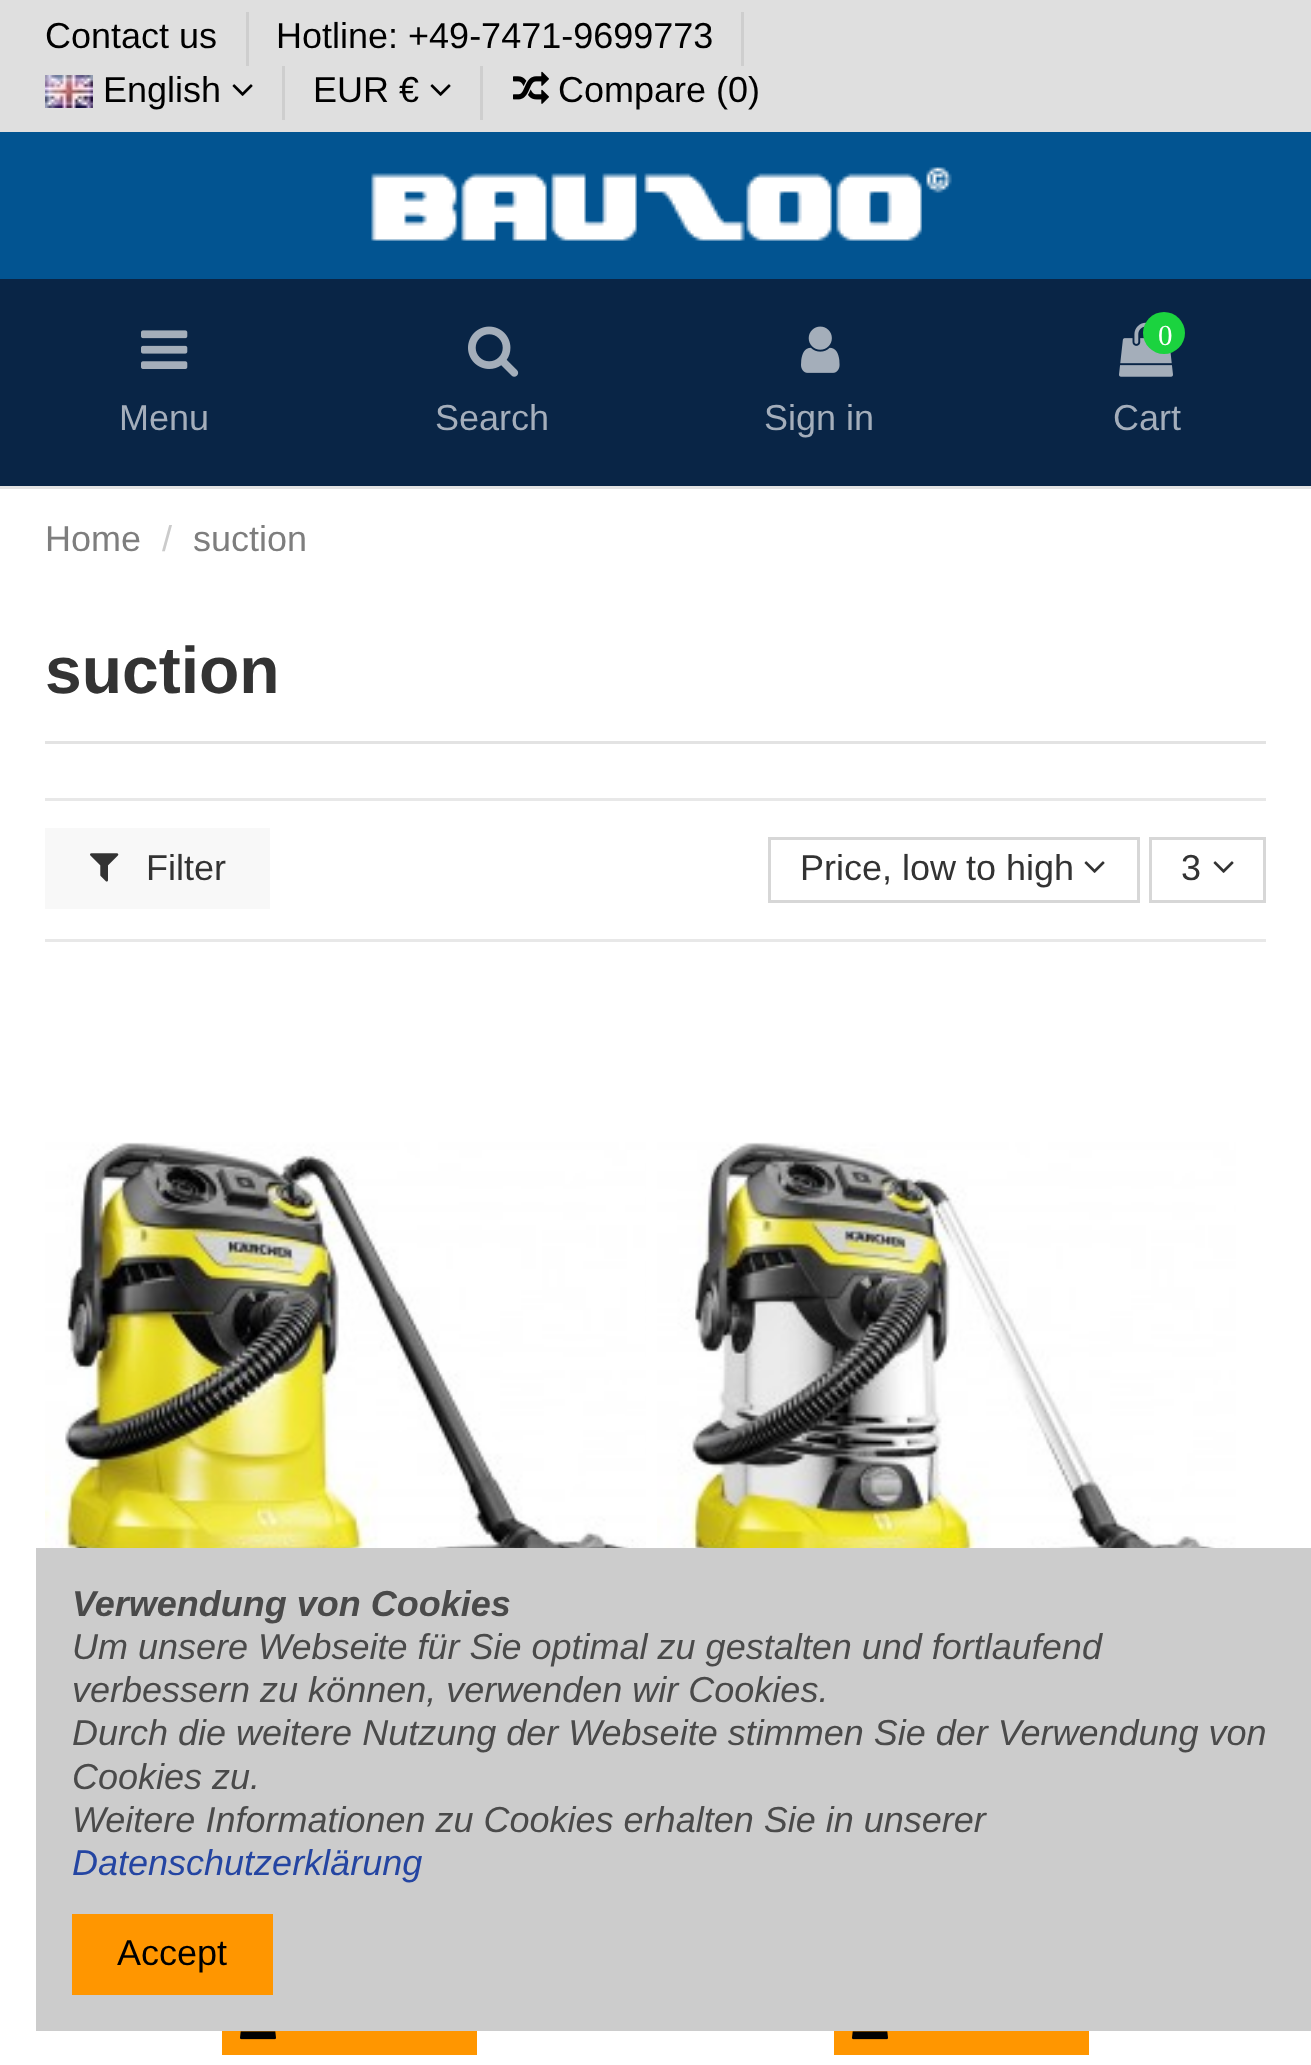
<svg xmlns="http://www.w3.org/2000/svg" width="1311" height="2065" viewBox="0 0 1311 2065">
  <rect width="100%" height="100%" fill="#fff"/>
  <path d="M0 132h1311v147H0z" fill="#025491"/>
  <path d="M0 0h1311v132H0z" fill="#dfdfdf"/>
  <path d="M246 12h3v54H246z" fill="#cecece"/>
  <path d="M741 12h3v54H741z" fill="#cecece"/>
  <image x="45" y="75" width="48" height="33" href="img/1.png"/>
  <image x="232" y="84" width="21" height="12" href="img/2.png"/>
  <path d="M282 66h3v54H282z" fill="#cecece"/>
  <image x="430" y="84" width="21" height="12" href="img/2.png"/>
  <path d="M480 66h3v54H480z" fill="#cecece"/>
  <image x="513" y="71" width="36" height="33" href="img/3.png"/>
  <path d="M0 486h1311v3H0z" fill="#e3e3e3"/>
  <image x="371" y="167" width="581" height="74" href="img/4.png"/>
  <path d="M0 279h1311v207H0z" fill="#092546"/>
  <image x="141" y="330" width="47" height="39" href="img/5.png"/>
  <image x="468" y="326" width="51" height="51" href="img/6.png"/>
  <image x="801" y="326" width="39" height="47" href="img/7.png"/>
  <image x="1119" y="322" width="54" height="55" href="img/8.png"/>
  <circle cx="1164" cy="333" r="21" fill="#1bd33f"/>
  <path d="M45 741h1221v3H45z" fill="#e3e3e3"/>
  <path d="M45 798h1221v3H45z" fill="#e8e8e8"/>
  <path d="M45 939h1221v3H45z" fill="#e8e8e8"/>
  <path d="M45 828h225v81H45z" fill="#f8f8f8"/>
  <image x="90" y="853" width="29" height="29" href="img/9.png"/>
  <path d="M769.5 838.5h369v63H769.5z" fill="none" stroke="#d7d7d7" stroke-width="3"/>
  <image x="1084" y="861" width="21" height="12" href="img/10.png"/>
  <path d="M1150.5 838.5h114v63H1150.5z" fill="none" stroke="#d7d7d7" stroke-width="3"/>
  <image x="1213" y="861" width="21" height="12" href="img/10.png"/>
  <image x="45" y="1142" width="601" height="406" href="img/11.png"/>
  <path d="M222 2031h255v24H222z" fill="#ff9600"/>
  <image x="240" y="2031" width="36" height="9" href="img/12.png"/>
  <image x="657" y="1142" width="579" height="406" href="img/13.png"/>
  <path d="M834 2031h255v24H834z" fill="#ff9600"/>
  <image x="852" y="2031" width="36" height="9" href="img/12.png"/>
  <path d="M36 1548h1275v483H36z" fill="#ccc"/>
  <path d="M72 1914h201v81H72z" fill="#ff9600"/>
  <g font-family="Liberation Sans" font-size="36" fill="#000">
    <text x="45" y="48">Contact us</text>
    <text x="276" y="48">Hotline: +49-7471-9699773</text>
    <text x="103" y="102">English</text>
    <text x="313" y="102">EUR €</text>
    <text x="558" y="102">Compare (0)</text>
  </g>
  <g font-family="Liberation Sans" font-size="36" fill="#a4aebb">
    <text x="119" y="430">Menu</text>
    <text x="435" y="430">Search</text>
    <text x="764" y="430">Sign in</text>
  </g>
  <text x="1158" y="345" font-family="Liberation Serif" font-size="29" fill="#fff">0</text>
  <text x="1113" y="430" font-family="Liberation Sans" font-size="36" fill="#a4aebb">Cart</text>
  <text x="45" y="551" font-family="Liberation Sans" font-size="36" fill="#7e7e7e">Home</text>
  <text x="162" y="551" font-family="Liberation Sans" font-size="36" fill="#cbcbcb">/</text>
  <text x="193" y="551" font-family="Liberation Sans" font-size="36" fill="#7e7e7e">suction</text>
  <text x="45" y="693" font-family="Liberation Sans" font-size="66" font-weight="bold" fill="#333">suction</text>
  <g font-family="Liberation Sans" font-size="36" fill="#333">
    <text x="146" y="880">Filter</text>
    <text x="800" y="880">Price, low to high</text>
    <text x="1181" y="880">3</text>
  </g>
  <text x="72" y="1616" font-family="Liberation Sans" font-size="36" font-weight="bold" font-style="italic" fill="#4a4a4a">Verwendung von Cookies</text>
  <g font-family="Liberation Sans" font-size="36" font-style="italic" fill="#4a4a4a">
    <text x="72" y="1659">Um unsere Webseite für Sie optimal zu gestalten und fortlaufend</text>
    <text x="72" y="1702">verbessern zu können, verwenden wir Cookies.</text>
    <text x="72" y="1745">Durch die weitere Nutzung der Webseite stimmen Sie der Verwendung von</text>
    <text x="72" y="1789">Cookies zu.</text>
    <text x="72" y="1832">Weitere Informationen zu Cookies erhalten Sie in unserer</text>
  </g>
  <text x="72" y="1875" font-family="Liberation Sans" font-size="36" font-style="italic" fill="#2445a2">Datenschutzerklärung</text>
  <text x="117" y="1965" font-family="Liberation Sans" font-size="36" fill="#000">Accept</text>
</svg>
